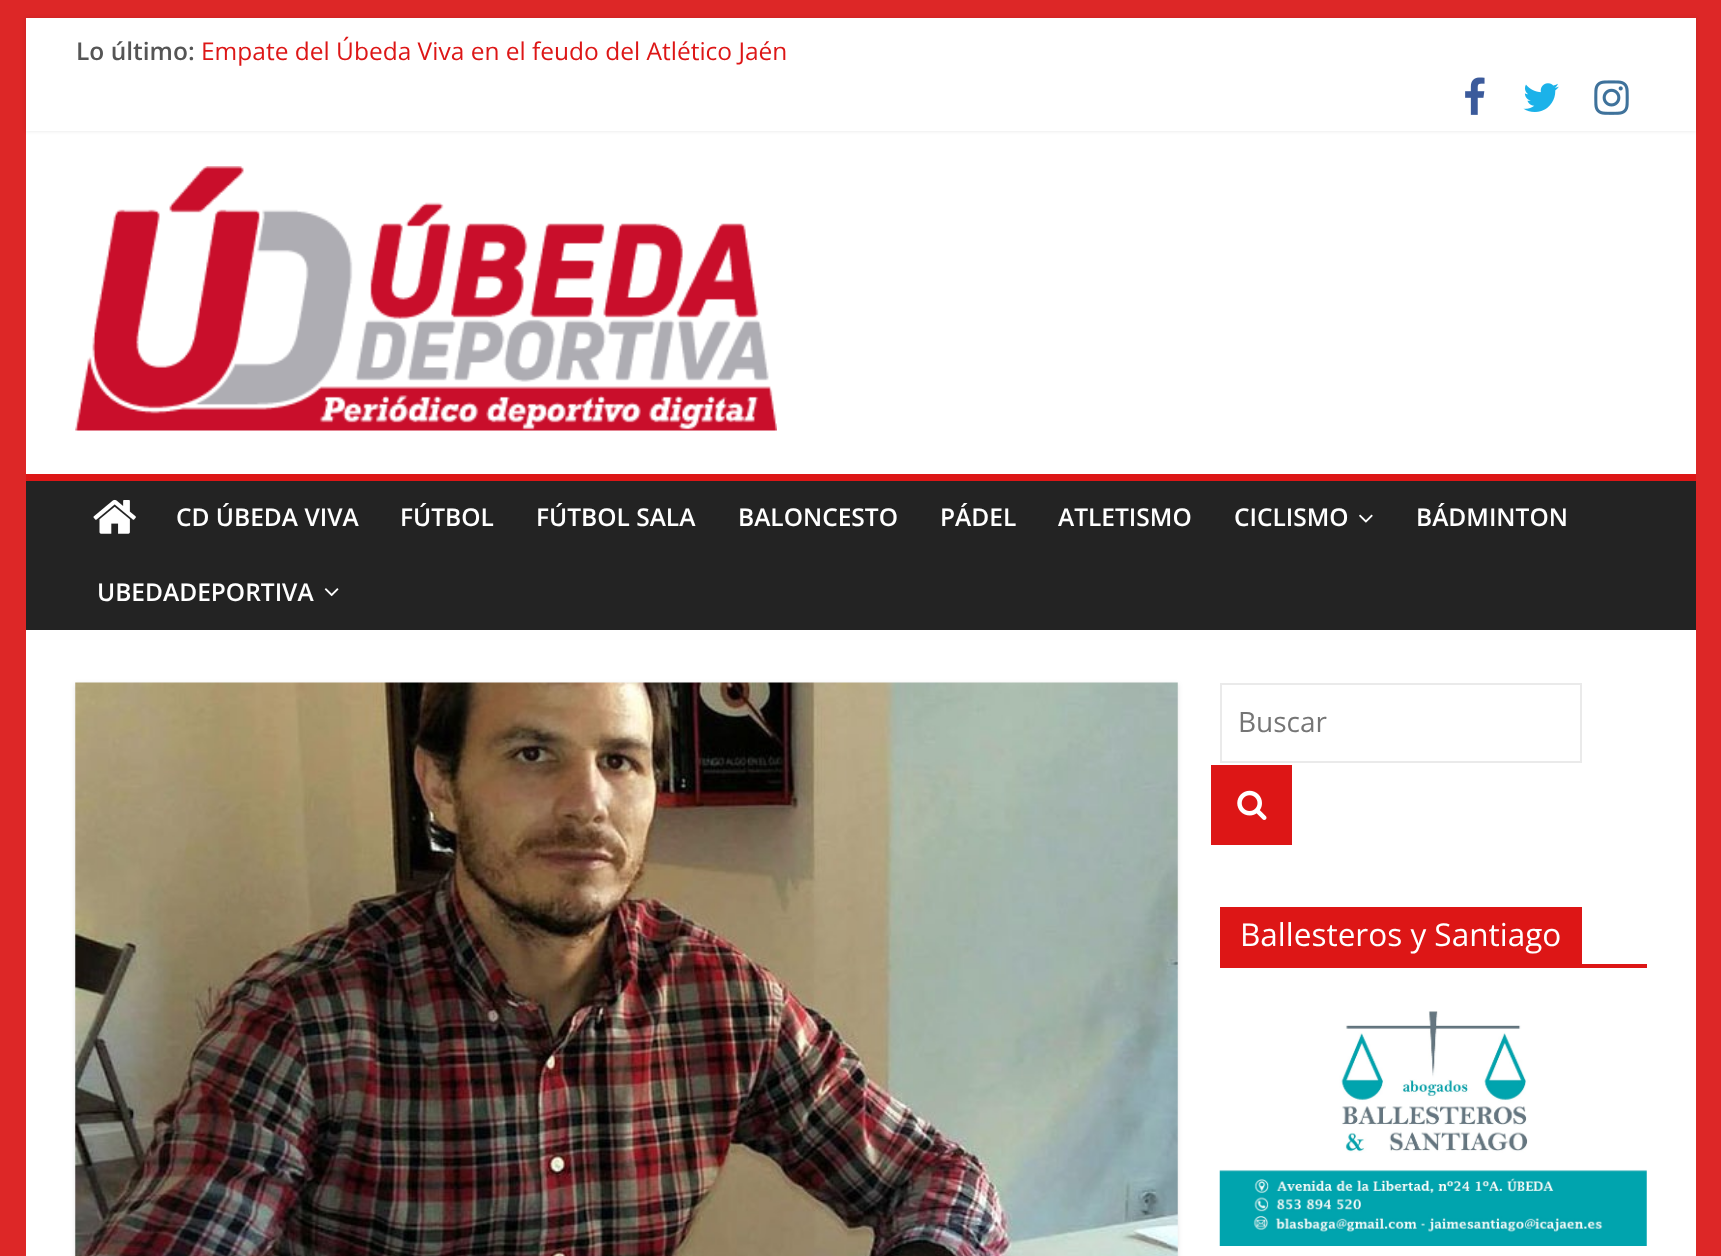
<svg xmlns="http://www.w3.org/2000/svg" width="1721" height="1256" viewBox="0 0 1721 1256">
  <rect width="100%" height="100%" fill="#dd2727"/>
  <path d="M26 131h1670v343H26z" fill="#fff"/>
  <path d="M26 18h1670v113H26z" fill="#0000001a" filter="blur(2px)"/>
  <path d="M26 18h1670v113H26z" fill="#fff"/>
  <image x="1465" y="77" width="20" height="38" href="img/1.png"/>
  <image x="1523" y="83" width="36" height="29" href="img/2.png"/>
  <image x="1594" y="80" width="35" height="35" href="img/3.png"/>
  <image x="75" y="166" width="702" height="265" href="img/4.png"/>
  <path d="M26 481h1670v149H26z" fill="#232323"/>
  <path d="M26 474h1670v7H26z" fill="#dd1616"/>
  <image x="93" y="499" width="43" height="35" href="img/5.png"/>
  <image x="1359" y="514" width="14" height="9" href="img/6.png"/>
  <image x="324" y="588" width="15" height="9" href="img/7.png"/>
  <path d="M26 630h1670v626H26z" fill="#fff"/>
  <path d="M75 684h1103v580H75z" fill="#0000001a" filter="blur(2.5px)"/>
  <image x="75" y="682" width="1103" height="574" href="img/8.png"/>
  <path d="M1221 684h360v78H1221z" fill="none" stroke="#eaeaea" stroke-width="2"/>
  <path d="M1211 765h81v80H1211z" fill="#dd1616"/>
  <image x="1237" y="790" width="30" height="30" href="img/9.png"/>
  <path d="M1220 964h427v4H1220z" fill="#dd1616"/>
  <path d="M1220 907h362v57H1220z" fill="#dd1616"/>
  <image x="1219" y="1011" width="428" height="235" href="img/10.png"/>
  <text x="76" y="60" font-family="Open Sans" font-size="24.5" font-weight="600" fill="#555">Lo último:</text>
  <text x="201" y="60" font-family="Open Sans" font-size="24.5" fill="#dd1616">Empate del Úbeda Viva en el feudo del Atlético Jaén</text>
  <g font-family="Open Sans" font-size="24.5" font-weight="600" fill="#fff">
    <text x="176" y="526">CD ÚBEDA VIVA</text>
    <text x="400" y="526">FÚTBOL</text>
    <text x="536" y="526">FÚTBOL SALA</text>
    <text x="738" y="526">BALONCESTO</text>
    <text x="940" y="526">PÁDEL</text>
    <text x="1058" y="526">ATLETISMO</text>
    <text x="1234" y="526">CICLISMO</text>
    <text x="1416" y="526">BÁDMINTON</text>
    <text x="97" y="601">UBEDADEPORTIVA</text>
  </g>
  <text x="1238" y="732" font-family="Open Sans" font-size="28" fill="#757575">Buscar</text>
  <text x="1240" y="946" font-family="Open Sans" font-size="31.5" fill="#fff">Ballesteros y Santiago</text>
</svg>
